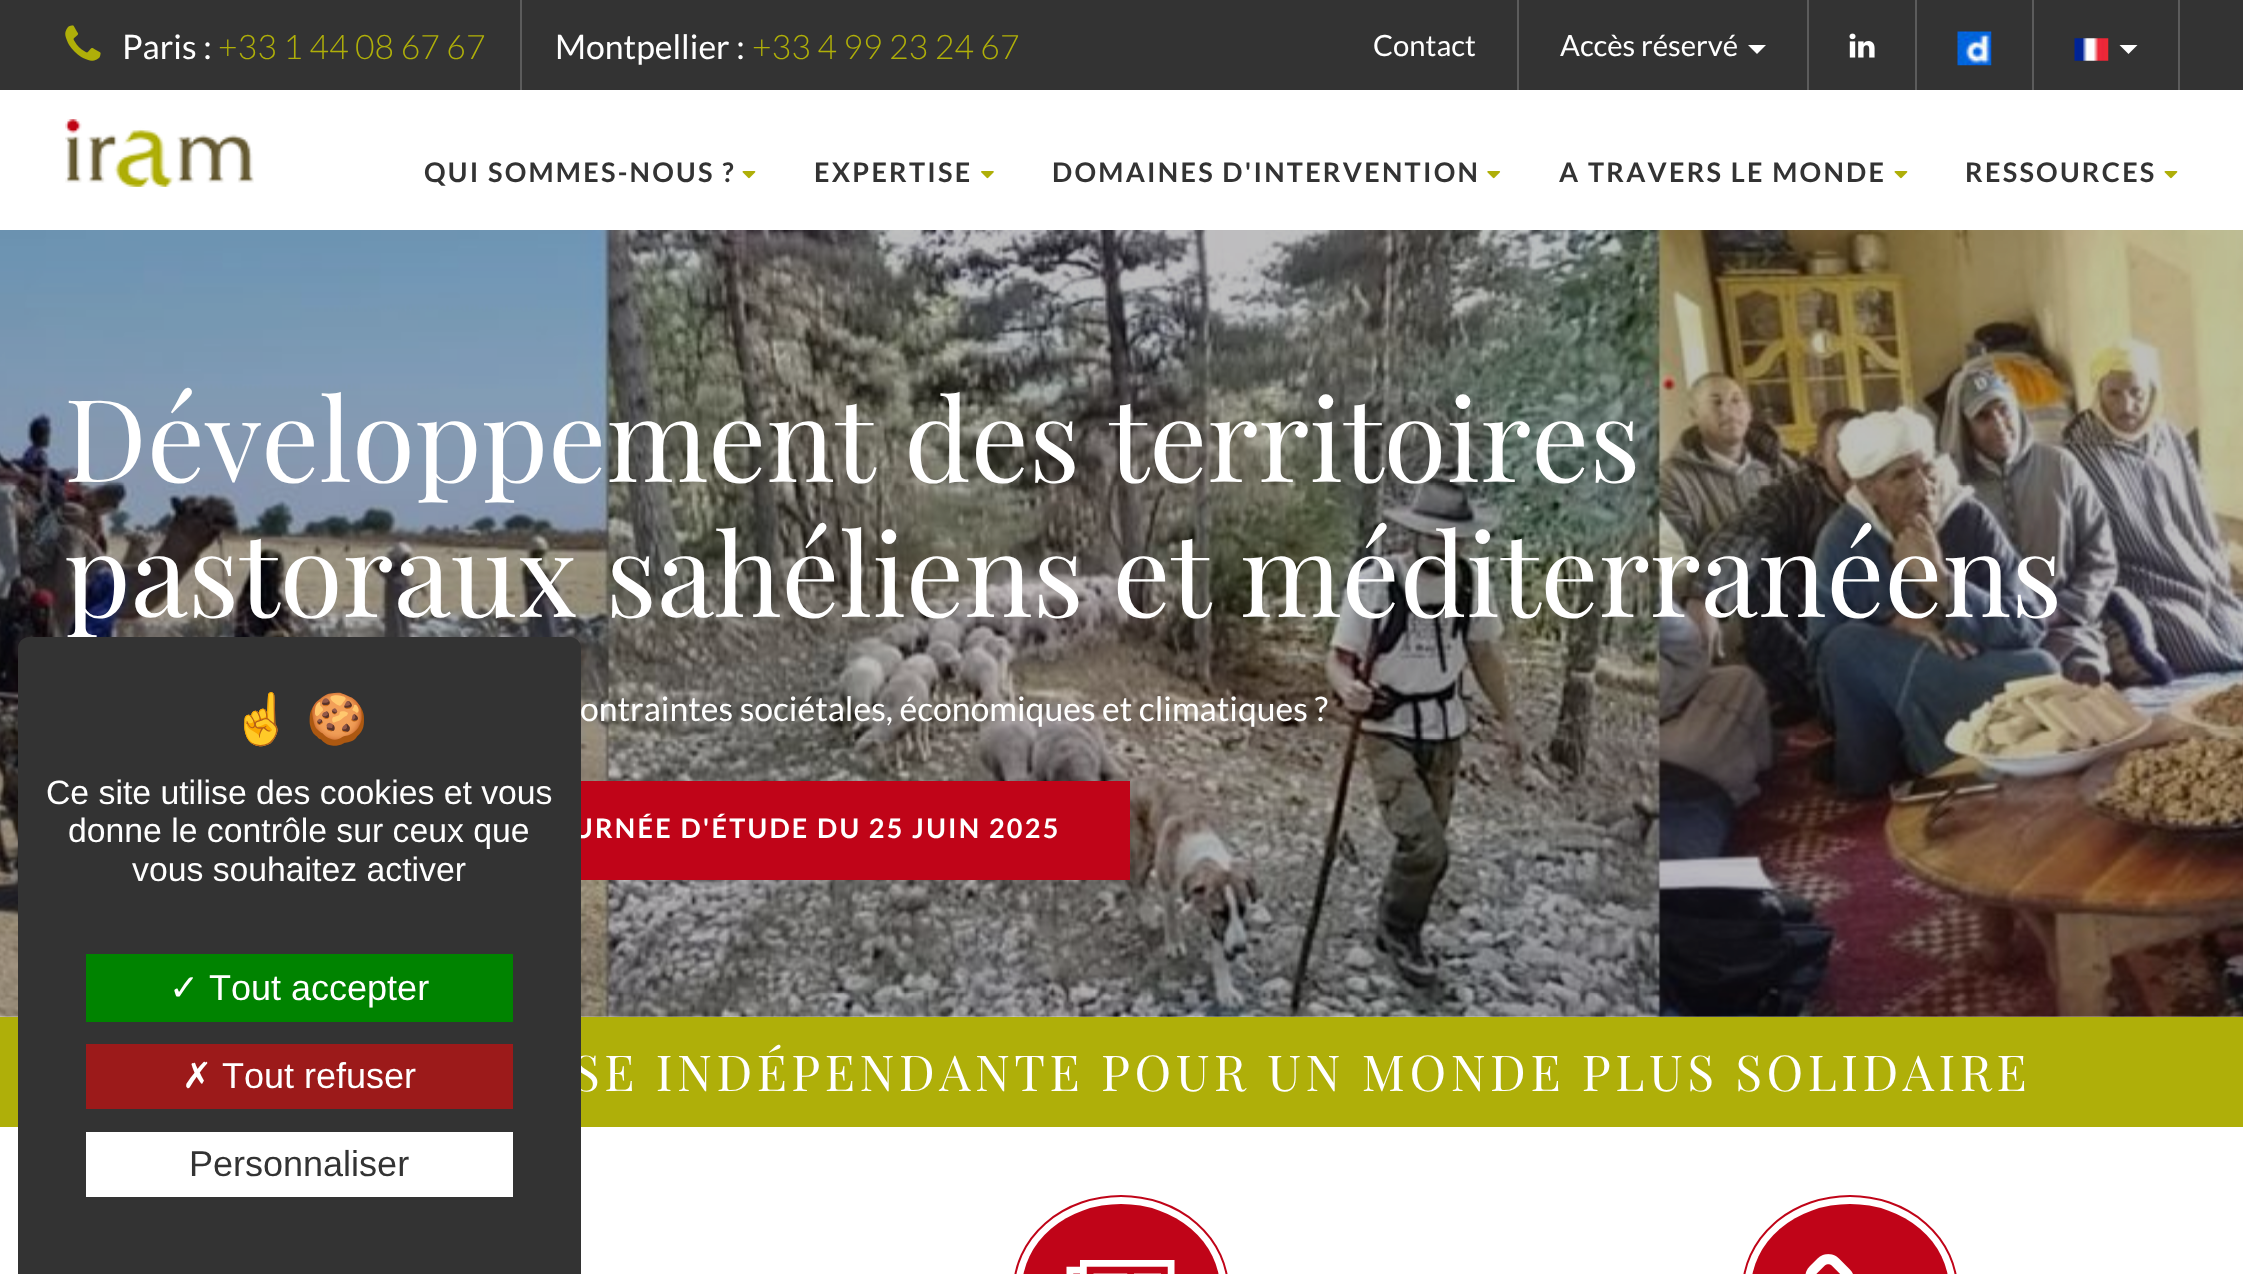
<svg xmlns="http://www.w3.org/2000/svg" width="2243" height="1274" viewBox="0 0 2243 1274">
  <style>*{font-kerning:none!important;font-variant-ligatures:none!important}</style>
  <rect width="100%" height="100%" fill="#fff"/>
  <path d="M0 0h2243v90H0z" fill="#333"/>
  <path d="M520 0h2v90H520z" fill="#5c5c5c"/>
  <image x="65" y="25" width="36" height="36" href="img/1.png"/>
  <path d="M1517 0h2v90H1517z" fill="#5c5c5c"/>
  <path d="M1807 0h2v90H1807z" fill="#5c5c5c"/>
  <path d="M1748 45H1766L1757 54Z" fill="#fff"/>
  <path d="M1915 0h2v90H1915z" fill="#5c5c5c"/>
  <image x="1849" y="33" width="26" height="25" href="img/2.png"/>
  <path d="M2032 0h2v90H2032z" fill="#5c5c5c"/>
  <image x="1957" y="31" width="35" height="35" href="img/3.png"/>
  <path d="M2178 0h2v90H2178z" fill="#5c5c5c"/>
  <image x="2074" y="38" width="35" height="23" href="img/4.png"/>
  <path d="M2119.5 45H2137.5L2128.5 54Z" fill="#fff"/>
  <image x="65" y="119" width="189" height="68" href="img/5.png"/>
  <image x="742" y="171" width="14" height="8" href="img/6.png"/>
  <image x="981" y="171" width="13" height="8" href="img/7.png"/>
  <image x="1487" y="171" width="14" height="8" href="img/8.png"/>
  <image x="1894" y="171" width="14" height="8" href="img/6.png"/>
  <image x="2164" y="171" width="14" height="8" href="img/6.png"/>
  <image x="0" y="230" width="2243" height="787" href="img/9.png"/>
  <path d="M581 781h549v99H581z" fill="#c00418"/>
  <path d="M0 1017h2243v110H0z" fill="#afaf09"/>
  <rect x="1014" y="1196" width="214" height="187" rx="107" fill="none" stroke="#c00418" stroke-width="2"/>
  <rect x="1022" y="1204" width="198" height="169" rx="99" fill="#c00418"/>
  <image x="1066" y="1260" width="109" height="14" href="img/10.png"/>
  <rect x="1743" y="1196" width="214" height="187" rx="107" fill="none" stroke="#c00418" stroke-width="2"/>
  <rect x="1751" y="1204" width="198" height="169" rx="99" fill="#c00418"/>
  <image x="1805" y="1254" width="48" height="20" href="img/11.png"/>
  <text x="122" y="59" font-family="Lato" font-size="33.75" fill="#fff">Paris :</text>
  <text x="218" y="59" font-family="Lato" font-size="33.75" font-weight="300" fill="#afaf09">+33 1 44 08 67 67</text>
  <text x="555" y="59" font-family="Lato" font-size="33.75" fill="#fff">Montpellier :</text>
  <text x="752" y="59" font-family="Lato" font-size="33.75" font-weight="300" fill="#afaf09">+33 4 99 23 24 67</text>
  <g font-family="Lato" font-size="29.25" fill="#fff">
    <text x="1373" y="56">Contact</text>
    <text x="1560" y="56">Accès réservé</text>
  </g>
  <g font-family="Lato" font-size="27" font-weight="bold" letter-spacing="2.25" fill="#333">
    <text x="424" y="182">QUI SOMMES-NOUS ?</text>
    <text x="814" y="182">EXPERTISE</text>
    <text x="1052" y="182">DOMAINES D'INTERVENTION</text>
    <text x="1559" y="182">A TRAVERS LE MONDE</text>
    <text x="1965" y="182">RESSOURCES</text>
  </g>
  <g font-family="Playfair Display" font-size="114.75" fill="#fff">
    <text x="64" y="482">Développement des territoires</text>
    <text x="64" y="617">pastoraux sahéliens et méditerranéens</text>
  </g>
  <text x="580" y="721" font-family="Lato" font-size="33.75" fill="#fff">ontraintes sociétales, économiques et climatiques ?</text>
  <text x="573" y="838" font-family="Lato" font-size="27" font-weight="bold" letter-spacing="2.25" fill="#fff">URNÉE D'ÉTUDE DU 25 JUIN 2025</text>
  <text x="573" y="1091" font-family="Playfair Display" font-size="49.5" letter-spacing="4.5" fill="#fff">SE INDÉPENDANTE POUR UN MONDE PLUS SOLIDAIRE</text>
  <path d="M29 637H570C576 637 581 642 581 648V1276H18V648C18 642 23 637 29 637Z" fill="#333"/>
  <g font-family="Noto Color Emoji" font-size="49.5" fill="#fff">
    <text x="231" y="736">☝</text>
    <text x="306" y="736">🍪</text>
  </g>
  <g font-family="Liberation Sans" font-size="33.75" fill="#fff">
    <text x="46" y="804">Ce site utilise des cookies et vous</text>
    <text x="68" y="842">donne le contrôle sur ceux que</text>
    <text x="132" y="881">vous souhaitez activer</text>
  </g>
  <path d="M86 954h427v68H86z" fill="#008300"/>
  <text x="169" y="1000" font-family="DejaVu Sans" font-size="36" fill="#fff">✓</text>
  <text x="209" y="1000" font-family="Liberation Sans" font-size="36" fill="#fff">Tout accepter</text>
  <path d="M86 1044h427v65H86z" fill="#9c1a1a"/>
  <text x="182" y="1088" font-family="DejaVu Sans" font-size="36" fill="#fff">✗</text>
  <text x="222" y="1088" font-family="Liberation Sans" font-size="36" fill="#fff">Tout refuser</text>
  <path d="M86 1132h427v65H86z" fill="#fff"/>
  <text x="189" y="1176" font-family="Liberation Sans" font-size="36" fill="#333">Personnaliser</text>
</svg>
